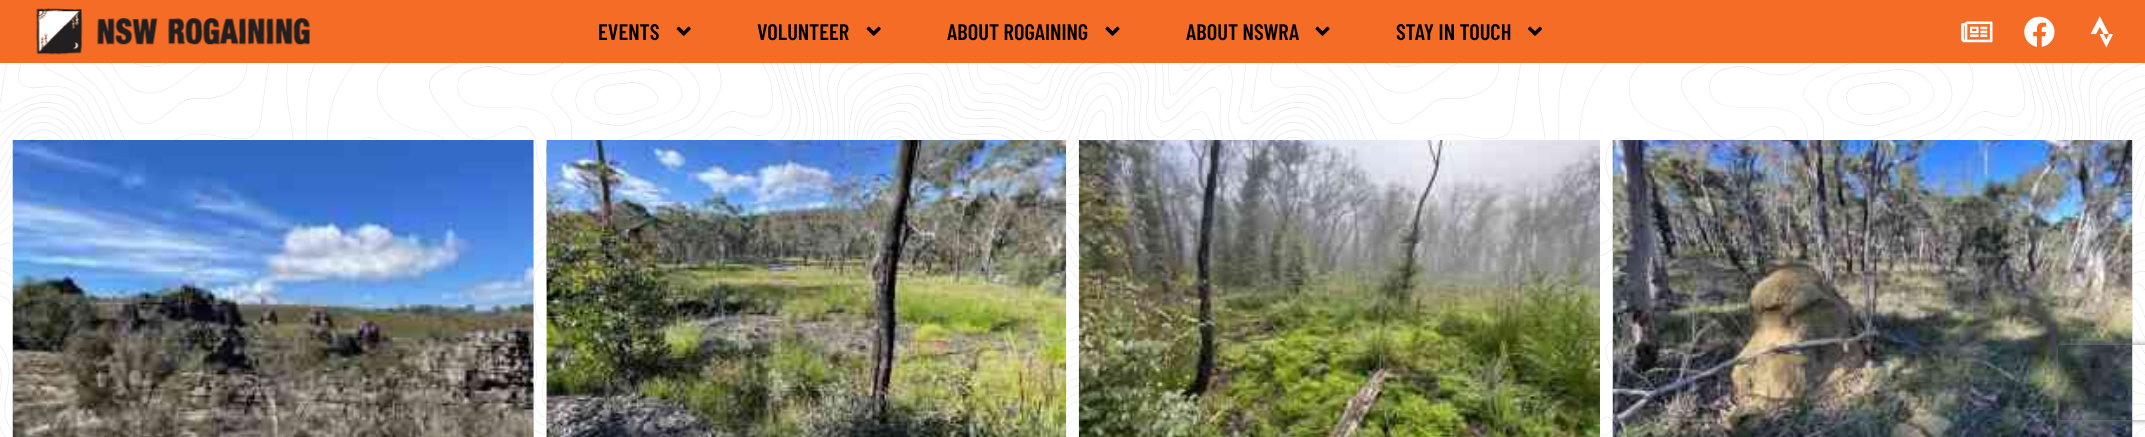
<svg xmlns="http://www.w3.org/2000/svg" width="2145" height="437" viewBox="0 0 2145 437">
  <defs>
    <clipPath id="clip1"><path d="M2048 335H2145V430H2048ZM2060.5 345H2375.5C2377 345 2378 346 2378 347.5V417.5C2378 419 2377 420 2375.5 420H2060.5C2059 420 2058 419 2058 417.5V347.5C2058 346 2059 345 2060.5 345Z" clip-rule="evenodd"/></clipPath>
  </defs>
  <rect width="100%" height="100%" fill="#fff"/>
  <image x="0" y="63" width="2145" height="374" href="img/1.png"/>
  <path d="M0 0h2145v63H0z" fill="#f46c25"/>
  <image x="36" y="8" width="274" height="47" href="img/2.png"/>
  <image x="676" y="26" width="15" height="10" href="img/3.png"/>
  <image x="866" y="26" width="15" height="10" href="img/3.png"/>
  <image x="1105" y="26" width="15" height="10" href="img/4.png"/>
  <image x="1315" y="26" width="15" height="10" href="img/4.png"/>
  <image x="1528" y="26" width="14" height="10" href="img/5.png"/>
  <image x="1961" y="21" width="32" height="22" href="img/6.png"/>
  <image x="2024" y="16" width="31" height="31" href="img/7.png"/>
  <image x="2090" y="16" width="23" height="32" href="img/8.png"/>
  <image x="12" y="140" width="522" height="297" href="img/9.png"/>
  <image x="546" y="140" width="521" height="297" href="img/10.png"/>
  <image x="1078" y="140" width="522" height="297" href="img/11.png"/>
  <image x="1612" y="140" width="521" height="297" href="img/12.png"/>
  <g clip-path="url(#clip1)">
    <rect x="2058" y="345" width="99" height="75" rx="2.5" fill="#808080" filter="blur(3px)"/>
  </g>
  <g font-family="Barlow Condensed" font-size="22.5" font-weight="600" fill="#000">
    <text x="598" y="40">EVENTS</text>
    <text x="757" y="40">VOLUNTEER</text>
    <text x="947" y="40">ABOUT ROGAINING</text>
    <text x="1186" y="40">ABOUT NSWRA</text>
    <text x="1396" y="40">STAY IN TOUCH</text>
  </g>
</svg>
